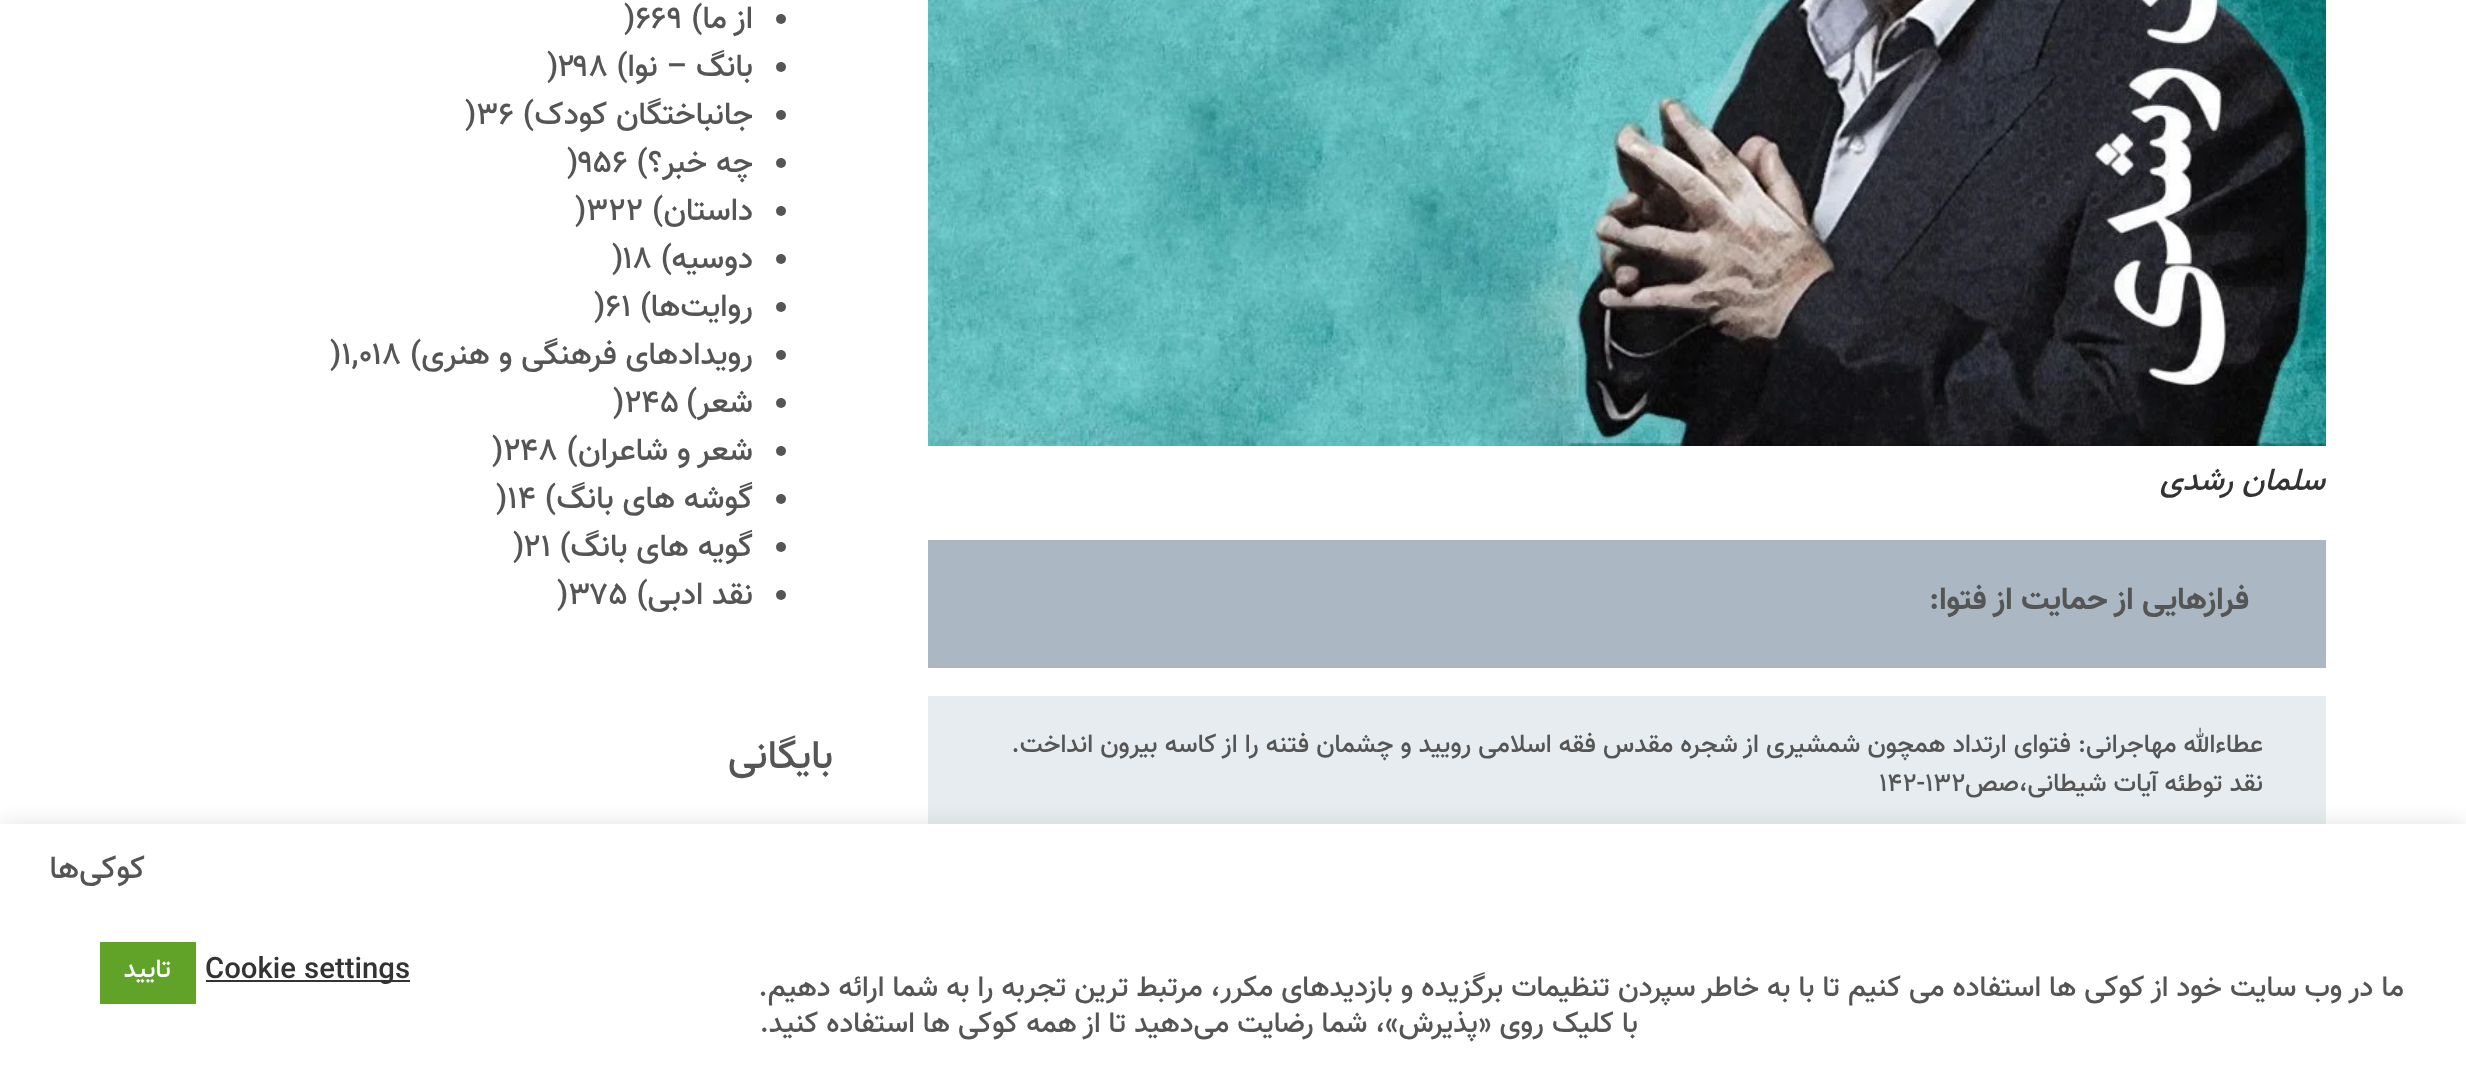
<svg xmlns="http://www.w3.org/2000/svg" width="2466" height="1072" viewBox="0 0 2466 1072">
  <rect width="100%" height="100%" fill="#fff"/>
  <image x="928" y="0" width="1398" height="446" href="img/1.png"/>
  <path d="M928 540h1398v128H928z" fill="#abb8c3"/>
  <path d="M928 696h1398v128H928z" fill="#e6ecef"/>
  <circle cx="781" cy="19" r="5" fill="#555"/>
  <circle cx="781" cy="67" r="5" fill="#555"/>
  <circle cx="781" cy="115" r="5" fill="#555"/>
  <circle cx="781" cy="163" r="5" fill="#555"/>
  <circle cx="781" cy="211" r="5" fill="#555"/>
  <circle cx="781" cy="259" r="5" fill="#555"/>
  <circle cx="781" cy="307" r="5" fill="#555"/>
  <circle cx="781" cy="355" r="5" fill="#555"/>
  <circle cx="781" cy="403" r="5" fill="#555"/>
  <circle cx="781" cy="451" r="5" fill="#555"/>
  <circle cx="781" cy="499" r="5" fill="#555"/>
  <circle cx="781" cy="547" r="5" fill="#555"/>
  <circle cx="781" cy="595" r="5" fill="#555"/>
  <path d="M0 822h2466v248H0z" fill="#acabab4d" filter="blur(10px)"/>
  <path d="M0 824h2466v248H0z" fill="#fff"/>
  <path d="M206 980h204v2H206z" fill="#333"/>
  <path d="M100 942h96v62H100z" fill="#61a229"/>
  <text x="2325" y="490" font-family="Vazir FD" font-size="32" font-weight="500" font-style="italic" direction="rtl" fill="#333">سلمان رشدی</text>
  <text x="2249" y="609" font-family="Vazir FD" font-size="32" font-weight="bold" direction="rtl" fill="#555">فرازهایی از حمایت از فتوا:</text>
  <g font-family="Vazir FD" font-size="26" font-weight="500" direction="rtl" fill="#555">
    <text x="2263" y="752">عطاءالله مهاجرانی: فتوای ارتداد همچون شمشیری از شجره مقدس فقه اسلامی رویید و چشمان فتنه را از کاسه بیرون انداخت.</text>
    <text x="2263" y="791">نقد توطئه آیات شیطانی،صص</text>
  </g>
  <text x="1879" y="791" font-family="Vazir FD" font-size="26" font-weight="500" fill="#555">۱۴۲-۱۳۲</text>
  <text x="753" y="28" font-family="Vazir FD" font-size="32" font-weight="500" direction="rtl" fill="#555">از ما</text>
  <text x="624" y="28" font-family="Vazir FD" font-size="32" font-weight="500" fill="#555">)۶۶۹ (</text>
  <text x="753" y="76" font-family="Vazir FD" font-size="32" font-weight="500" direction="rtl" fill="#555">بانگ – نوا</text>
  <text x="547" y="76" font-family="Vazir FD" font-size="32" font-weight="500" fill="#555">)۲۹۸ (</text>
  <text x="753" y="124" font-family="Vazir FD" font-size="32" font-weight="500" direction="rtl" fill="#555">جانباختگان کودک</text>
  <text x="465" y="124" font-family="Vazir FD" font-size="32" font-weight="500" fill="#555">)۳۶ (</text>
  <text x="753" y="172" font-family="Vazir FD" font-size="32" font-weight="500" direction="rtl" fill="#555">چه خبر؟</text>
  <text x="567" y="172" font-family="Vazir FD" font-size="32" font-weight="500" fill="#555">)۹۵۶ (</text>
  <text x="753" y="220" font-family="Vazir FD" font-size="32" font-weight="500" direction="rtl" fill="#555">داستان</text>
  <text x="575" y="220" font-family="Vazir FD" font-size="32" font-weight="500" fill="#555">)۳۲۲ (</text>
  <text x="753" y="268" font-family="Vazir FD" font-size="32" font-weight="500" direction="rtl" fill="#555">دوسیه</text>
  <text x="612" y="268" font-family="Vazir FD" font-size="32" font-weight="500" fill="#555">)۱۸ (</text>
  <text x="753" y="316" font-family="Vazir FD" font-size="32" font-weight="500" direction="rtl" fill="#555">روایت‌ها</text>
  <text x="594" y="316" font-family="Vazir FD" font-size="32" font-weight="500" fill="#555">)۶۱ (</text>
  <text x="753" y="364" font-family="Vazir FD" font-size="32" font-weight="500" direction="rtl" fill="#555">رویدادهای فرهنگی و هنری</text>
  <text x="330" y="364" font-family="Vazir FD" font-size="32" font-weight="500" fill="#555">)۱,۰۱۸ (</text>
  <text x="753" y="412" font-family="Vazir FD" font-size="32" font-weight="500" direction="rtl" fill="#555">شعر</text>
  <g font-family="Vazir FD" font-size="32" font-weight="500" fill="#555">
    <text x="686" y="412">(</text>
    <text x="613" y="412">)۲۴۵</text>
  </g>
  <text x="753" y="460" font-family="Vazir FD" font-size="32" font-weight="500" direction="rtl" fill="#555">شعر و شاعران</text>
  <text x="492" y="460" font-family="Vazir FD" font-size="32" font-weight="500" fill="#555">)۲۴۸ (</text>
  <text x="753" y="508" font-family="Vazir FD" font-size="32" font-weight="500" direction="rtl" fill="#555">گوشه های بانگ</text>
  <text x="496" y="508" font-family="Vazir FD" font-size="32" font-weight="500" fill="#555">)۱۴ (</text>
  <text x="753" y="556" font-family="Vazir FD" font-size="32" font-weight="500" direction="rtl" fill="#555">گویه های بانگ</text>
  <text x="513" y="556" font-family="Vazir FD" font-size="32" font-weight="500" fill="#555">)۲۱ (</text>
  <text x="753" y="604" font-family="Vazir FD" font-size="32" font-weight="500" direction="rtl" fill="#555">نقد ادبی</text>
  <text x="557" y="604" font-family="Vazir FD" font-size="32" font-weight="500" fill="#555">)۳۷۵ (</text>
  <text x="833" y="768" font-family="Vazir FD" font-size="40" font-weight="500" direction="rtl" fill="#555">بایگانی</text>
  <text x="145" y="878" font-family="Vazir FD" font-size="32" font-weight="500" direction="rtl" fill="#555">کوکی‌ها</text>
  <g font-family="Vazir FD" font-size="29.33" font-weight="500" direction="rtl" fill="#555">
    <text x="2404" y="996">ما در وب سایت خود از کوکی ها استفاده می کنیم تا با به خاطر سپردن تنظیمات برگزیده و بازدیدهای مکرر، مرتبط ترین تجربه را به شما ارائه دهیم.</text>
    <text x="1638" y="1032">با کلیک روی «پذیرش»، شما رضایت می‌دهید تا از همه کوکی ها استفاده کنید.</text>
  </g>
  <text x="205" y="978" font-family="Vazir FD" font-size="29.33" font-weight="500" fill="#333">Cookie settings</text>
  <text x="171" y="977" font-family="Vazir FD" font-size="26" font-weight="500" direction="rtl" fill="#fff">تایید</text>
</svg>
